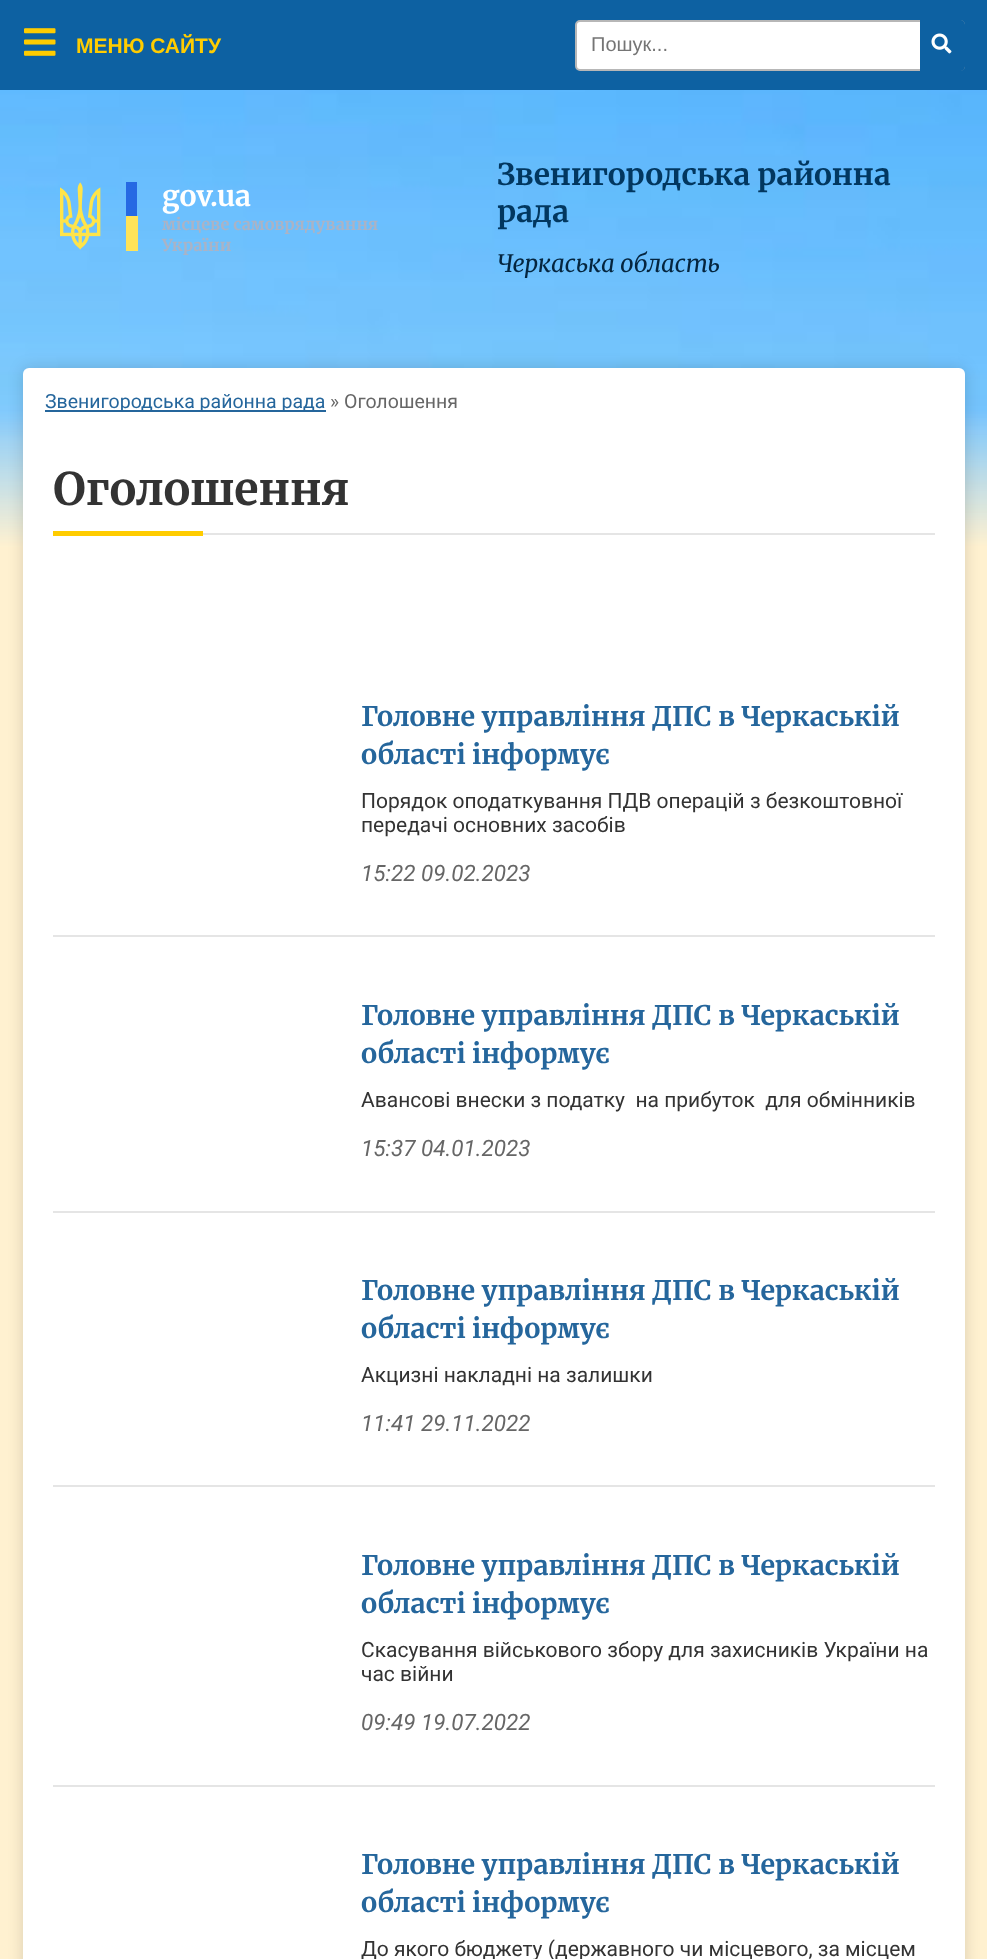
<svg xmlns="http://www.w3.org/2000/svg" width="987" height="1959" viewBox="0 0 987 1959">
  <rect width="100%" height="100%" fill="#fff"/>
  <image x="0" y="90" width="987" height="1869" href="img/1.png"/>
  <rect x="23" y="368" width="942" height="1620" rx="6" fill="#00000026" filter="blur(7.5px)"/>
  <rect x="23" y="368" width="942" height="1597" rx="6" fill="#fff"/>
  <path d="M0 0h987v90H0z" fill="#0d61a2"/>
  <image x="24" y="28" width="32" height="28" href="img/2.png"/>
  <path d="M45 410h281v2H45z" fill="#25669c"/>
  <path d="M203 533h732v2H203z" fill="#e5e5e5"/>
  <path d="M53 531h150v5H53z" fill="#fc0"/>
  <path d="M53 935h882v2H53z" fill="#e5e5e5"/>
  <path d="M53 1211h882v2H53z" fill="#e5e5e5"/>
  <path d="M53 1485h882v2H53z" fill="#e5e5e5"/>
  <path d="M53 1785h882v2H53z" fill="#e5e5e5"/>
  <rect x="576" y="21" width="388" height="49" rx="4" fill="#fff" stroke="#b7b7b7" stroke-width="2"/>
  <path d="M920 20H960C963 20 965 22 965 25V66C965 69 963 71 960 71H920Z" fill="#0d61a2"/>
  <image x="931" y="33" width="21" height="21" href="img/3.png"/>
  <image x="60" y="182" width="41" height="68" href="img/4.png"/>
  <path d="M126 182h11v34H126z" fill="#2669e3"/>
  <path d="M126 216h12v35H126z" fill="#ffe358"/>
  <text x="76" y="53" font-family="Liberation Sans" font-size="21" font-weight="bold" fill="#fc0">МЕНЮ САЙТУ</text>
  <text x="45" y="408" font-family="Roboto" font-size="19.5" fill="#25669c">Звенигородська районна рада</text>
  <text x="330" y="408" font-family="Roboto" font-size="19.5" fill="#666">» Оголошення</text>
  <text x="53" y="505" font-family="Merriweather" font-size="45" font-weight="300" fill="#333">Оголошення</text>
  <g font-family="Merriweather" font-size="27" font-weight="300" fill="#25669c">
    <text x="361" y="726">Головне управління ДПС в Черкаській</text>
    <text x="361" y="764">області інформує</text>
  </g>
  <g font-family="Roboto" font-size="21" fill="#333">
    <text x="361" y="808">Порядок оподаткування ПДВ операцій з безкоштовної</text>
    <text x="361" y="832">передачі основних засобів</text>
  </g>
  <text x="361" y="881" font-family="Roboto" font-size="22.5" font-style="italic" fill="#666">15:22 09.02.2023</text>
  <g font-family="Merriweather" font-size="27" font-weight="300" fill="#25669c">
    <text x="361" y="1025">Головне управління ДПС в Черкаській</text>
    <text x="361" y="1063">області інформує</text>
  </g>
  <text x="361" y="1107" font-family="Roboto" font-size="21" fill="#333" xml:space="preserve">Аванcові внески з податку  на прибуток  для обмінників</text>
  <text x="361" y="1156" font-family="Roboto" font-size="22.5" font-style="italic" fill="#666">15:37 04.01.2023</text>
  <g font-family="Merriweather" font-size="27" font-weight="300" fill="#25669c">
    <text x="361" y="1300">Головне управління ДПС в Черкаській</text>
    <text x="361" y="1338">області інформує</text>
  </g>
  <text x="361" y="1382" font-family="Roboto" font-size="21" fill="#333">Акцизні накладні на залишки</text>
  <text x="361" y="1431" font-family="Roboto" font-size="22.5" font-style="italic" fill="#666">11:41 29.11.2022</text>
  <g font-family="Merriweather" font-size="27" font-weight="300" fill="#25669c">
    <text x="361" y="1575">Головне управління ДПС в Черкаській</text>
    <text x="361" y="1613">області інформує</text>
  </g>
  <g font-family="Roboto" font-size="21" fill="#333">
    <text x="361" y="1657">Cкасування військового збору для захисників України на</text>
    <text x="361" y="1681">час війни</text>
  </g>
  <text x="361" y="1730" font-family="Roboto" font-size="22.5" font-style="italic" fill="#666">09:49 19.07.2022</text>
  <g font-family="Merriweather" font-size="27" font-weight="300" fill="#25669c">
    <text x="361" y="1874">Головне управління ДПС в Черкаській</text>
    <text x="361" y="1912">області інформує</text>
  </g>
  <text x="361" y="1956" font-family="Roboto" font-size="21" fill="#333">До якого бюджету (державного чи місцевого, за місцем</text>
  <text x="591" y="51" font-family="Liberation Sans" font-size="20" fill="#757575">Пошук...</text>
  <text x="162" y="206" font-family="Merriweather" font-size="28.5" font-weight="300" fill="#fff">gov.ua</text>
  <g font-family="Merriweather" font-size="16.5" font-weight="300" fill="#aab3c6">
    <text x="162" y="230">місцеве самоврядування</text>
    <text x="162" y="251">України</text>
  </g>
  <g font-family="Merriweather" font-size="30" font-weight="300" fill="#02375f">
    <text x="497" y="185">Звенигородська районна</text>
    <text x="497" y="222">рада</text>
  </g>
  <text x="497" y="272" font-family="Merriweather" font-size="24" font-weight="300" font-style="italic" fill="#05253e">Черкаська область</text>
</svg>
